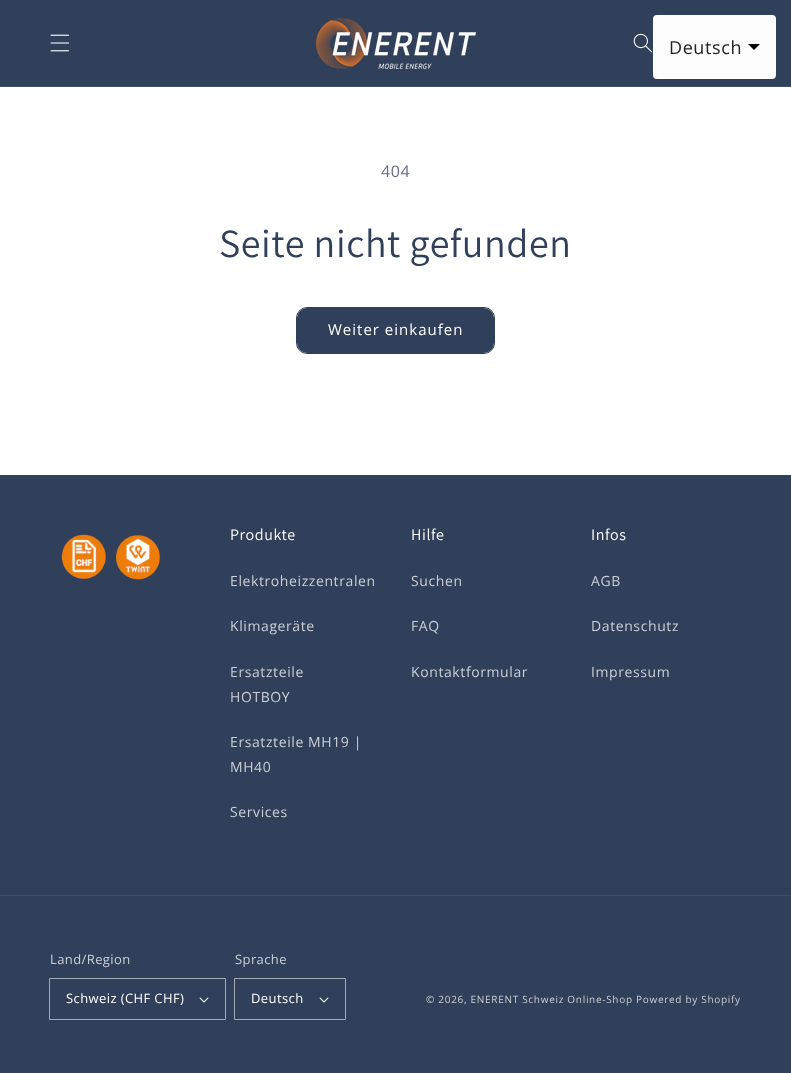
<svg xmlns="http://www.w3.org/2000/svg" width="791" height="1073" viewBox="0 0 791 1073">
  <rect width="100%" height="100%" fill="#fff"/>
  <path d="M0 0h791v86H0z" fill="#303f5a"/>
  <path d="M0 86h791v1H0z" fill="#414e67"/>
  <image x="50" y="34" width="20" height="18" href="img/1.png"/>
  <image x="316" y="18" width="160" height="51" href="img/2.png"/>
  <image x="633" y="33" width="19" height="20" href="img/3.png"/>
  <rect x="653" y="15" width="123" height="64" rx="4" fill="#fdfdfd"/>
  <path d="M748 44H760L754 50Z" fill="#000"/>
  <rect x="296.5" y="307.5" width="198" height="46" rx="10.5" fill="none" stroke="#303f5a"/>
  <rect x="297" y="308" width="197" height="45" rx="10" fill="#303f5a"/>
  <path d="M0 475h791v598H0z" fill="#303f5a"/>
  <image x="61" y="534" width="100" height="46" href="img/4.png"/>
  <path d="M0 895h791v1H0z" fill="#414e67"/>
  <path d="M49.5 978.5h176v41H49.5z" fill="none" stroke="#a2a9b5"/>
  <image x="199" y="997" width="10" height="6" href="img/5.png"/>
  <path d="M234.5 978.5h111v41H234.5z" fill="none" stroke="#a2a9b5"/>
  <image x="319" y="997" width="10" height="6" href="img/5.png"/>
  <text x="669" y="54" font-family="Open Sans" font-size="18" letter-spacing="0.6" fill="#202223">Deutsch</text>
  <text x="381" y="177" font-family="Open Sans" font-size="16" letter-spacing="0.6" fill="#646f83">404</text>
  <text x="219" y="257" font-family="Assistant" font-size="40" letter-spacing="0.6" fill="#303f5a">Seite nicht gefunden</text>
  <text x="328" y="335" font-family="Open Sans" font-size="15" letter-spacing="1" fill="#fff">Weiter einkaufen</text>
  <text x="230" y="540" font-family="Assistant" font-size="16" letter-spacing="0.6" fill="#fff">Produkte</text>
  <g font-family="Open Sans" font-size="14" letter-spacing="0.6" fill="#cbcfd6">
    <text x="230" y="586">Elektroheizzentralen</text>
    <text x="230" y="631">Klimageräte</text>
    <text x="230" y="677">Ersatzteile</text>
    <text x="230" y="702">HOTBOY</text>
    <text x="230" y="747">Ersatzteile MH19 |</text>
    <text x="230" y="772">MH40</text>
    <text x="230" y="817">Services</text>
  </g>
  <text x="411" y="540" font-family="Assistant" font-size="16" letter-spacing="0.6" fill="#fff">Hilfe</text>
  <g font-family="Open Sans" font-size="14" letter-spacing="0.6" fill="#cbcfd6">
    <text x="411" y="586">Suchen</text>
    <text x="411" y="631">FAQ</text>
    <text x="411" y="677">Kontaktformular</text>
  </g>
  <text x="591" y="540" font-family="Assistant" font-size="16" letter-spacing="0.6" fill="#fff">Infos</text>
  <g font-family="Open Sans" font-size="14" letter-spacing="0.6" fill="#cbcfd6">
    <text x="591" y="586">AGB</text>
    <text x="591" y="631">Datenschutz</text>
    <text x="591" y="677">Impressum</text>
  </g>
  <text x="50" y="964" font-family="Open Sans" font-size="13" letter-spacing="0.4" fill="#cbcfd6">Land/Region</text>
  <text x="66" y="1003" font-family="Open Sans" font-size="13" letter-spacing="0.4" fill="#fff">Schweiz (CHF CHF)</text>
  <text x="235" y="964" font-family="Open Sans" font-size="13" letter-spacing="0.4" fill="#cbcfd6">Sprache</text>
  <text x="251" y="1003" font-family="Open Sans" font-size="13" letter-spacing="0.4" fill="#fff">Deutsch</text>
  <g font-family="Open Sans" font-size="10" letter-spacing="0.7" fill="#cbcfd6">
    <text x="426" y="1003">© 2026, ENERENT Schweiz Online-Shop</text>
    <text x="636" y="1003">Powered by Shopify</text>
  </g>
</svg>
